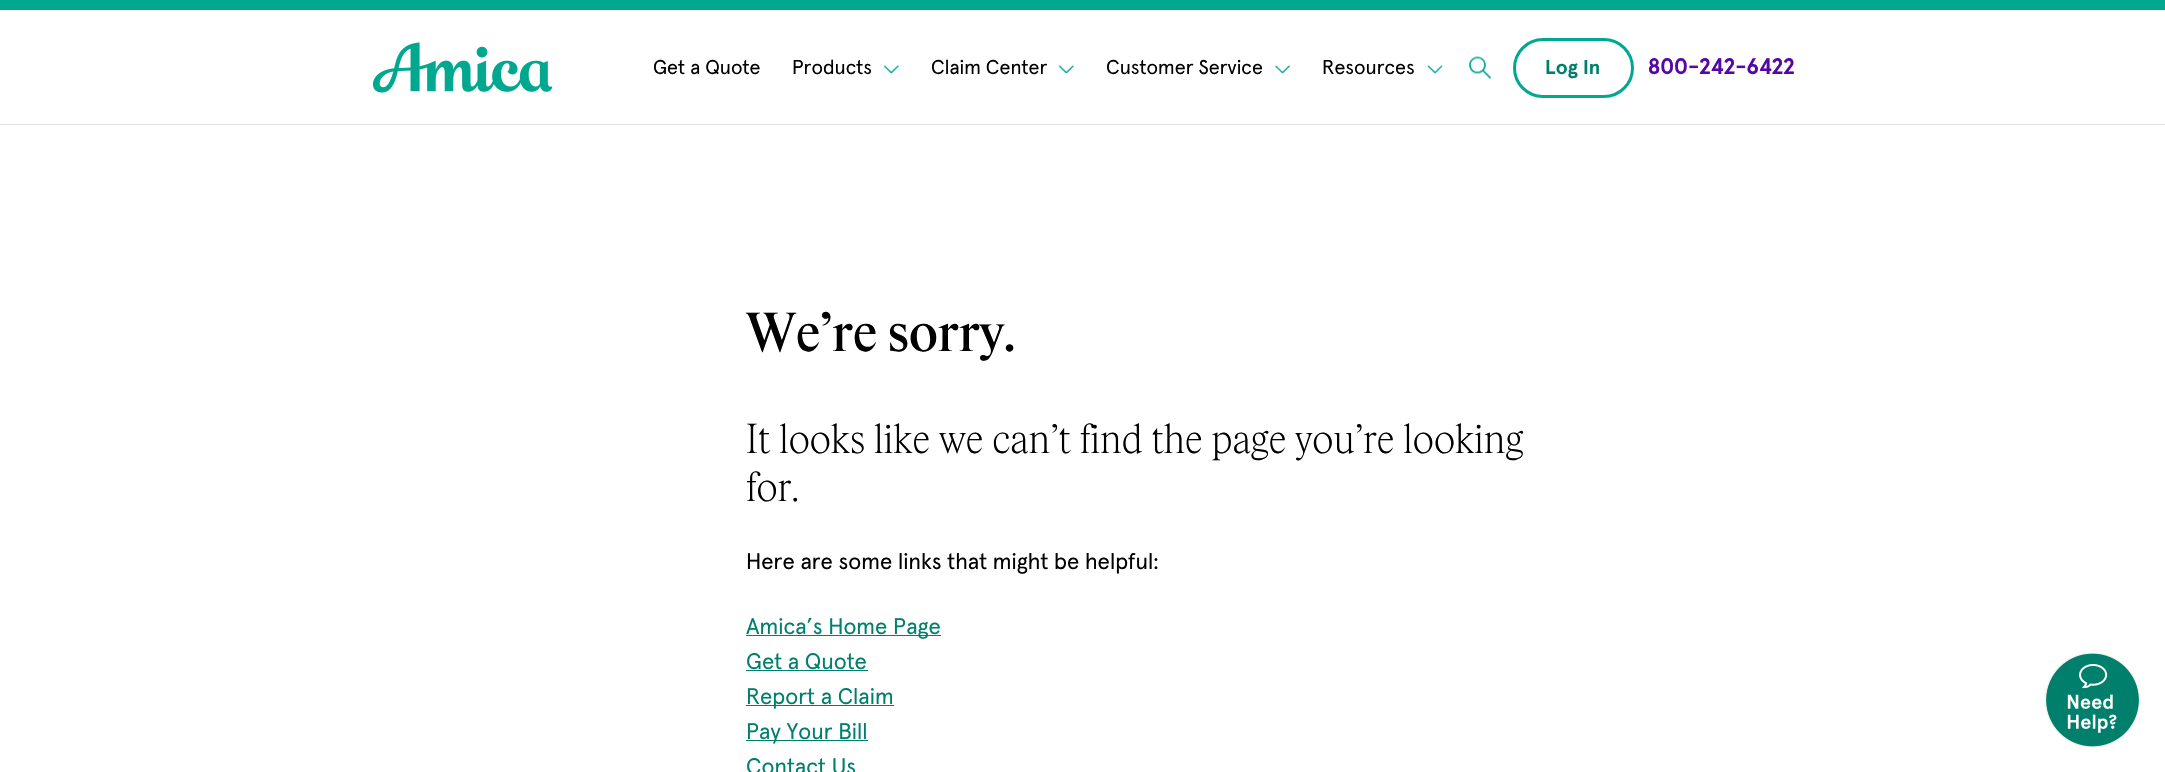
static SkFont makeFont(const char* family, int weight, float size, bool italic = false) {
  SkFontStyle style(weight, SkFontStyle::kNormal_Width,
    italic ? SkFontStyle::kItalic_Slant : SkFontStyle::kUpright_Slant);
  SkFont result(fontMgr->matchFamilyStyle(family, style), size);
  result.setSubpixel(true);
  return result;
}

static void text(SkCanvas* c, const char* s, float x, float y, const SkFont& font, SkColor color) {
  SkPaint ink(SkColor4f::FromColor(color));
  ink.setAntiAlias(true);
  c->drawString(s, x, y, font, ink);
}

static void box(SkCanvas* c, float l, float t, float r, float b, SkColor color) {
  SkPaint ink(SkColor4f::FromColor(color));
  ink.setAntiAlias(true);
  c->drawRect(SkRect::MakeLTRB(l, t, r, b), ink);
}

static void picture(SkCanvas* c, const char* path, float l, float t, float r, float b) {
  auto image = SkImages::DeferredFromEncodedData(SkData::MakeFromFileName(path));
  c->drawImageRect(image, SkRect::MakeLTRB(l, t, r, b), SkSamplingOptions());
}

void draw(SkCanvas* c) {
  SkPaint paint;
  paint.setAntiAlias(true);
  c->clear(0xffffffff);
  box(c, 0, 124, 2165, 125, 0xffe2e2e2);
  box(c, 0, 0, 2165, 10, 0xff00a88f);
  picture(c, "img_01.png", 372, 42, 553, 93);
  SkFont face1 = makeFont("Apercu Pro", 400, 20);
  text(c, "Get a Quote", 653, 74, face1, 0xff000000);
  text(c, "Products", 792, 74, face1, 0xff000000);
  picture(c, "img_02.png", 884, 65, 899, 74);
  text(c, "Claim Center", 931, 74, face1, 0xff000000);
  picture(c, "img_03.png", 1058, 65, 1074, 74);
  text(c, "Customer Service", 1106, 74, face1, 0xff000000);
  picture(c, "img_04.png", 1274, 65, 1290, 74);
  text(c, "Resources", 1322, 74, face1, 0xff000000);
  picture(c, "img_05.png", 1427, 65, 1443, 74);
  picture(c, "img_06.png", 1469, 56, 1491, 79);
  paint.setStyle(SkPaint::kStroke_Style);
  paint.setStrokeWidth(3);
  paint.setColor(0xff00a88f);
  c->drawRoundRect(SkRect::MakeLTRB(1514.5f, 39.5f, 1632.5f, 96.5f), 28.5f, 28.5f, paint);
  SkFont face2 = makeFont("Apercu Pro", 700, 20);
  text(c, "Log In", 1545, 74, face2, 0xff00806c);
  SkFont face3 = makeFont("Apercu Pro", 700, 22.5f);
  text(c, "800-242-6422", 1648, 74, face3, 0xff5508a5);
  SkFont face4 = makeFont("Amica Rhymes", 500, 52.5f);
  text(c, "We’re sorry.", 746, 351, face4, 0xff000000);
  SkFont face5 = makeFont("Amica Rhymes", 100, 40);
  text(c, "It looks like we can’t find the page you’re looking", 746, 453, face5, 0xff000000);
  text(c, "for.", 746, 501, face5, 0xff000000);
  SkFont face6 = makeFont("Apercu Pro", 400, 22.5f);
  text(c, "Here are some links that might be helpful:", 746, 569, face6, 0xff000000);
  box(c, 746, 635, 941, 636, 0xff00806c);
  text(c, "Amica’s Home Page", 746, 634, face6, 0xff00806c);
  text(c, "Get a Quote", 746, 669, face6, 0xff00806c);
  box(c, 746, 670, 868, 671, 0xff00806c);
  box(c, 746, 705, 894, 706, 0xff00806c);
  text(c, "Report a Claim", 746, 704, face6, 0xff00806c);
  box(c, 746, 740, 868, 741, 0xff00806c);
  text(c, "Pay Your Bill", 746, 739, face6, 0xff00806c);
  text(c, "Contact Us", 746, 774, face6, 0xff00806c);
  picture(c, "img_07.png", 2045, 653, 2140, 748);
}
